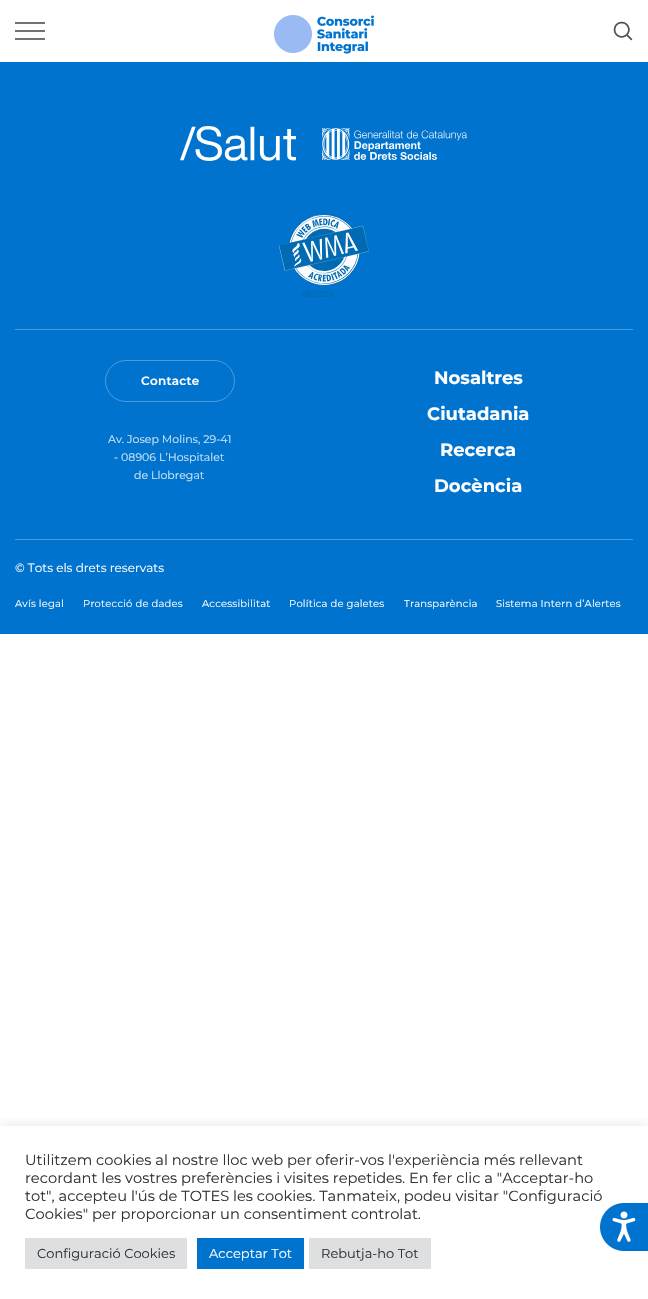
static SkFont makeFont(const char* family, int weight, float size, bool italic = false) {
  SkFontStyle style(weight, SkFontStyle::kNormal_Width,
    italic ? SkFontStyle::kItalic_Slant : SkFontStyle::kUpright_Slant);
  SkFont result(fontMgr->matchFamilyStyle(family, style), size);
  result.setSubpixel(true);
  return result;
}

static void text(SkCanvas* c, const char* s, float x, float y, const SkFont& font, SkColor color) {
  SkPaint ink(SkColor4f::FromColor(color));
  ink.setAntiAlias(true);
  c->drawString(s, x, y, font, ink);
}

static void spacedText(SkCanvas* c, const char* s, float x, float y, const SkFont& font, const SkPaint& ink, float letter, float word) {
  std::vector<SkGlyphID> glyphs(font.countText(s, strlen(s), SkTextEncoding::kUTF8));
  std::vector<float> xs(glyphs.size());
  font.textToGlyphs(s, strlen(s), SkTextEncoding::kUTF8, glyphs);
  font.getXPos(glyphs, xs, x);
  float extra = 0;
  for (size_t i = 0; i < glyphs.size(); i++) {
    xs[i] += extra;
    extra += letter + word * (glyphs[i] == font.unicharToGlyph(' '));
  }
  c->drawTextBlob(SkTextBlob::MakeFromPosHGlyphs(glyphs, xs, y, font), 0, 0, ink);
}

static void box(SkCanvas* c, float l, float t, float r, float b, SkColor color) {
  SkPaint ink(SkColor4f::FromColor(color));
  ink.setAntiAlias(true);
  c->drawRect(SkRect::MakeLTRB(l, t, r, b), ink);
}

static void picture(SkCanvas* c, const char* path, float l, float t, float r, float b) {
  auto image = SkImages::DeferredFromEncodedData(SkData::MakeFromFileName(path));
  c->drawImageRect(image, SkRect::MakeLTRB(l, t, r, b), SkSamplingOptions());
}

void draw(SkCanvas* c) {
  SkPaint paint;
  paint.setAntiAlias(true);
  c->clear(0xffffffff);
  box(c, 15, 22, 45, 24, 0xff737373);
  box(c, 15, 30, 45, 32, 0xff737373);
  box(c, 15, 38, 45, 40, 0xff737373);
  picture(c, "img_01.png", 274, 15, 374, 54);
  picture(c, "img_02.png", 613, 21, 633, 41);
  box(c, 0, 62, 648, 634, 0xff0073ce);
  box(c, 15, 329, 633, 330, 0xff4c9bdd);
  picture(c, "img_03.png", 180, 126, 467, 161);
  picture(c, "img_04.png", 279, 214, 369, 297);
  paint.setStyle(SkPaint::kStroke_Style);
  paint.setStrokeWidth(1);
  paint.setColor(0xff4c9bdd);
  c->drawRoundRect(SkRect::MakeLTRB(105.5f, 360.5f, 234.5f, 401.5f), 20.5f, 20.5f, paint);
  SkFont face1 = makeFont("Montserrat", 600, 12);
  paint.setStyle(SkPaint::kFill_Style);
  paint.setColor(0xffffffff);
  spacedText(c, "Contacte", 141, 385, face1, paint, 0.25f, 0);
  SkFont face2 = makeFont("Montserrat", 400, 11);
  text(c, "Av. Josep Molins, 29-41", 108, 443, face2, 0xffcce3f5);
  text(c, "- 08906 L’Hospitalet", 114, 461, face2, 0xffcce3f5);
  text(c, "de Llobregat", 134, 479, face2, 0xffcce3f5);
  SkFont face3 = makeFont("Montserrat", 700, 18);
  text(c, "Nosaltres", 434, 384, face3, 0xffffffff);
  text(c, "Ciutadania", 427, 420, face3, 0xffffffff);
  text(c, "Recerca", 440, 456, face3, 0xffffffff);
  text(c, "Docència", 434, 492, face3, 0xffffffff);
  box(c, 15, 539, 633, 540, 0xff4c9bdd);
  SkFont face4 = makeFont("Montserrat", 400, 12);
  text(c, "© Tots els drets reservats", 15, 572, face4, 0xffffffff);
  SkFont face5 = makeFont("Montserrat", 400, 10);
  spacedText(c, "Avís legal", 15, 607, face5, paint, 0.2f, 0);
  spacedText(c, "Protecció de dades", 83, 607, face5, paint, 0.2f, 0);
  spacedText(c, "Accessibilitat", 202, 607, face5, paint, 0.2f, 0);
  spacedText(c, "Política de galetes", 289, 607, face5, paint, 0.2f, 0);
  spacedText(c, "Transparència", 404, 607, face5, paint, 0.2f, 0);
  spacedText(c, "Sistema Intern d’Alertes", 496, 607, face5, paint, 0.2f, 0);
  c->save();
  c->clipRect(SkRect::MakeLTRB(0, 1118, 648, 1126));
  paint.setColor(0x4dacabab);
  paint.setMaskFilter(SkMaskFilter::MakeBlur(kNormal_SkBlurStyle, 5));
  c->drawRect(SkRect::MakeLTRB(0, 1125, 648, 1298), paint);
  paint.setMaskFilter(nullptr);
  c->restore();
  SkFont face6 = makeFont("Montserrat", 400, 14.65f);
  text(c, "Utilitzem cookies al nostre lloc web per oferir-vos l'experiència més rellevant", 25, 1165, face6, 0xff333333);
  text(c, "recordant les vostres preferències i visites repetides. En fer clic a \"Acceptar-ho", 25, 1183, face6, 0xff333333);
  text(c, "tot\", accepteu l'ús de TOTES les cookies. Tanmateix, podeu visitar \"Configuració", 25, 1201, face6, 0xff333333);
  text(c, "Cookies\" per proporcionar un consentiment controlat.", 25, 1219, face6, 0xff333333);
  box(c, 25, 1238, 187, 1269, 0xffdedfe0);
  SkFont face7 = makeFont("Montserrat", 400, 13);
  text(c, "Configuració Cookies", 37, 1258, face7, 0xff333333);
  box(c, 197, 1238, 304, 1269, 0xff0073cf);
  text(c, "Acceptar Tot", 209, 1258, face7, 0xffffffff);
  box(c, 309, 1238, 431, 1269, 0xffdedfe0);
  text(c, "Rebutja-ho Tot", 321, 1258, face7, 0xff333333);
  picture(c, "img_05.png", 600, 1203, 648, 1251);
}
